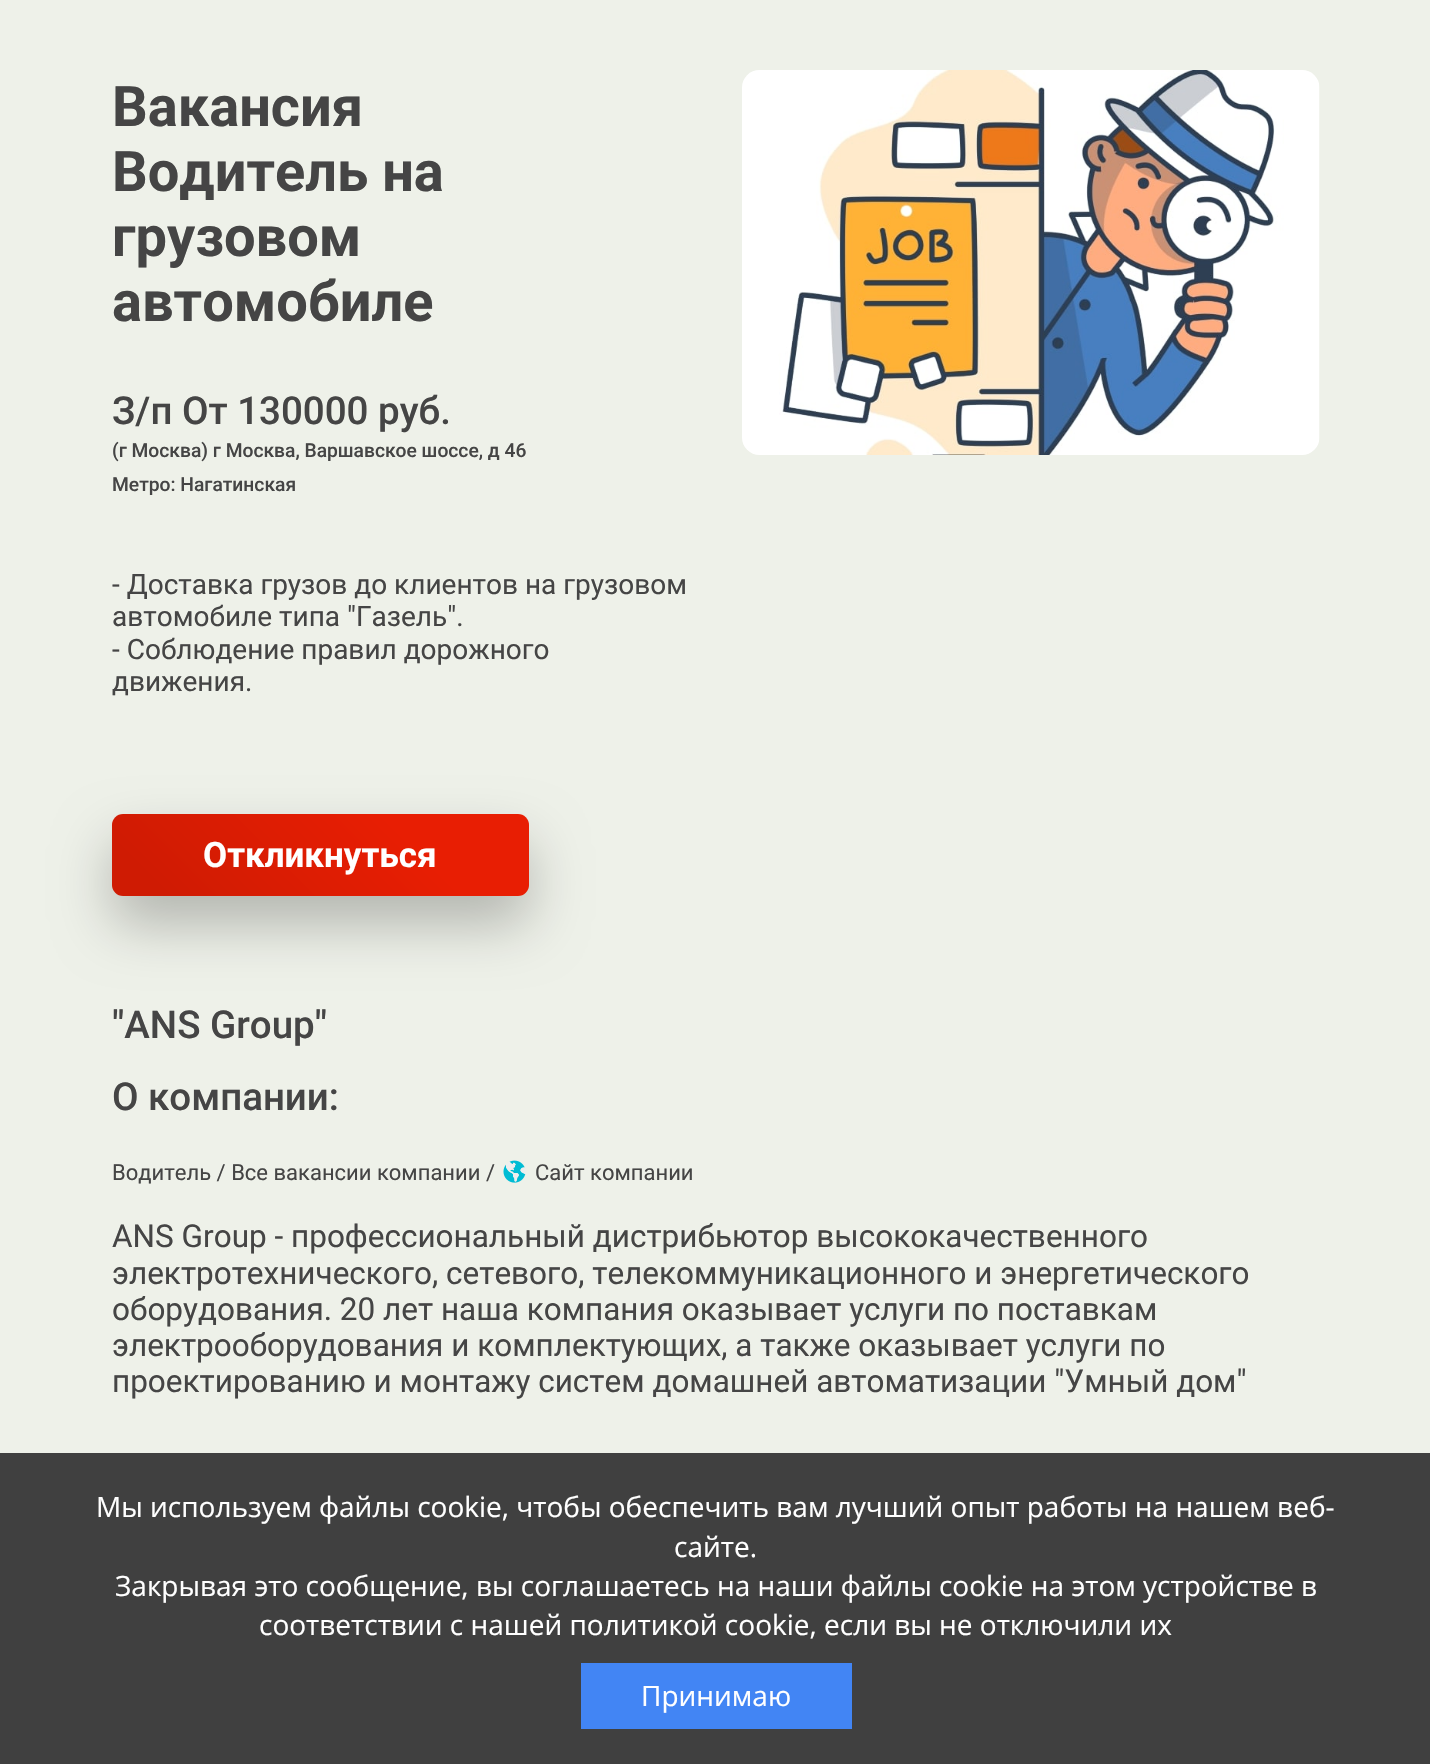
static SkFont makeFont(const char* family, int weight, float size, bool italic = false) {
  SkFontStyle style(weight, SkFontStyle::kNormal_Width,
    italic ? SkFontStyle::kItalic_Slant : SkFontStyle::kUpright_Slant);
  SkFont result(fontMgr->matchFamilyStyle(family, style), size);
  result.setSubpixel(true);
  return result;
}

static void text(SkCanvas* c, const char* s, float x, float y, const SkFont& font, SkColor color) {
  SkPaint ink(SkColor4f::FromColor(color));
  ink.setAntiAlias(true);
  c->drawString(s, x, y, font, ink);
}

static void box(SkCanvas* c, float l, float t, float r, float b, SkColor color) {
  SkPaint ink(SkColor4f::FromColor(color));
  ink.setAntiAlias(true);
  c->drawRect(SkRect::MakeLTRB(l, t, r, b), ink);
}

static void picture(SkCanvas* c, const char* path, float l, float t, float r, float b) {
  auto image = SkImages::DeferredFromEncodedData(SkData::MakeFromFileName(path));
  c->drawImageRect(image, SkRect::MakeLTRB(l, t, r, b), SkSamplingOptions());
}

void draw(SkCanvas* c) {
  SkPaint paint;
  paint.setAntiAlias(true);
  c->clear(0xffeef1e9);
  SkFont face1 = makeFont("Roboto", 700, 56);
  text(c, "Вакансия", 112, 126, face1, 0xff454545);
  text(c, "Водитель на", 112, 191, face1, 0xff454545);
  text(c, "грузовом", 112, 256, face1, 0xff454545);
  text(c, "автомобиле", 112, 321, face1, 0xff454545);
  SkFont face2 = makeFont("Roboto", 500, 38.5f);
  text(c, "З/п От 130000 руб.", 112, 424, face2, 0xff454545);
  SkFont face3 = makeFont("Roboto", 500, 19.25f);
  text(c, "(г Москва) г Москва, Варшавское шоссе, д 46", 112, 457, face3, 0xff454545);
  text(c, "Метро: Нагатинская", 112, 491, face3, 0xff454545);
  SkFont face4 = makeFont("Roboto", 400, 28);
  text(c, "- Доставка грузов до клиентов на грузовом", 112, 594, face4, 0xff454545);
  text(c, "автомобиле типа \"Газель\".", 112, 626, face4, 0xff454545);
  text(c, "- Соблюдение правил дорожного", 112, 659, face4, 0xff454545);
  text(c, "движения.", 112, 691, face4, 0xff454545);
  paint.setColor(0x40000000);
  paint.setMaskFilter(SkMaskFilter::MakeBlur(kNormal_SkBlurStyle, 28));
  c->drawRoundRect(SkRect::MakeLTRB(112, 842, 529, 924), 11, 11, paint);
  paint.setMaskFilter(nullptr);
  {
    const SkColor colors[] = {0xffcf1b03, 0xffe81e03};
    const float stops[] = {0.55f, 0.85f};
    const SkPoint ends[] = {{-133, 1145}, {366, 647}};
    paint.setShader(SkGradientShader::MakeLinear(ends, colors, stops, 2, SkTileMode::kClamp));
    paint.setAlpha(255);
  }
  c->drawRoundRect(SkRect::MakeLTRB(112, 814, 529, 896), 11, 11, paint);
  SkFont face5 = makeFont("Roboto", 700, 35);
  text(c, "Откликнуться", 203, 867, face5, 0xffffffff);
  picture(c, "img_01.png", 742, 70, 1320, 455);
  text(c, "\"ANS Group\"", 112, 1038, face2, 0xff454545);
  text(c, "О компании:", 112, 1110, face2, 0xff454545);
  SkFont face6 = makeFont("Roboto", 400, 22);
  text(c, "Водитель / Все вакансии компании /", 112, 1180, face6, 0xff454545);
  picture(c, "img_02.png", 503, 1160, 526, 1183);
  text(c, "Сайт компании", 535, 1180, face6, 0xff454545);
  SkFont face7 = makeFont("Roboto", 400, 31.5f);
  text(c, "ANS Group - профессиональный дистрибьютор высококачественного", 112, 1247, face7, 0xff454545);
  text(c, "электротехнического, сетевого, телекоммуникационного и энергетического", 112, 1284, face7, 0xff454545);
  text(c, "оборудования. 20 лет наша компания оказывает услуги по поставкам", 112, 1320, face7, 0xff454545);
  text(c, "электрооборудования и комплектующих, а также оказывает услуги по", 112, 1356, face7, 0xff454545);
  text(c, "проектированию и монтажу систем домашней автоматизации \"Умный дом\"", 112, 1392, face7, 0xff454545);
  box(c, 0, 1453, 1430, 1764, 0xff404040);
  SkFont face8 = makeFont("Open Sans", 400, 28);
  text(c, "Мы используем файлы cookie, чтобы обеспечить вам лучший опыт работы на нашем веб-", 96, 1517, face8, 0xffffffff);
  text(c, "сайте.", 674, 1557, face8, 0xffffffff);
  text(c, "Закрывая это сообщение, вы соглашаетесь на наши файлы cookie на этом устройстве в", 115, 1596, face8, 0xffffffff);
  text(c, "соответствии с нашей политикой cookie, если вы не отключили их", 259, 1635, face8, 0xffffffff);
  box(c, 581, 1663, 852, 1729, 0xff4285f4);
  text(c, "Принимаю", 641, 1706, face8, 0xffffffff);
}
